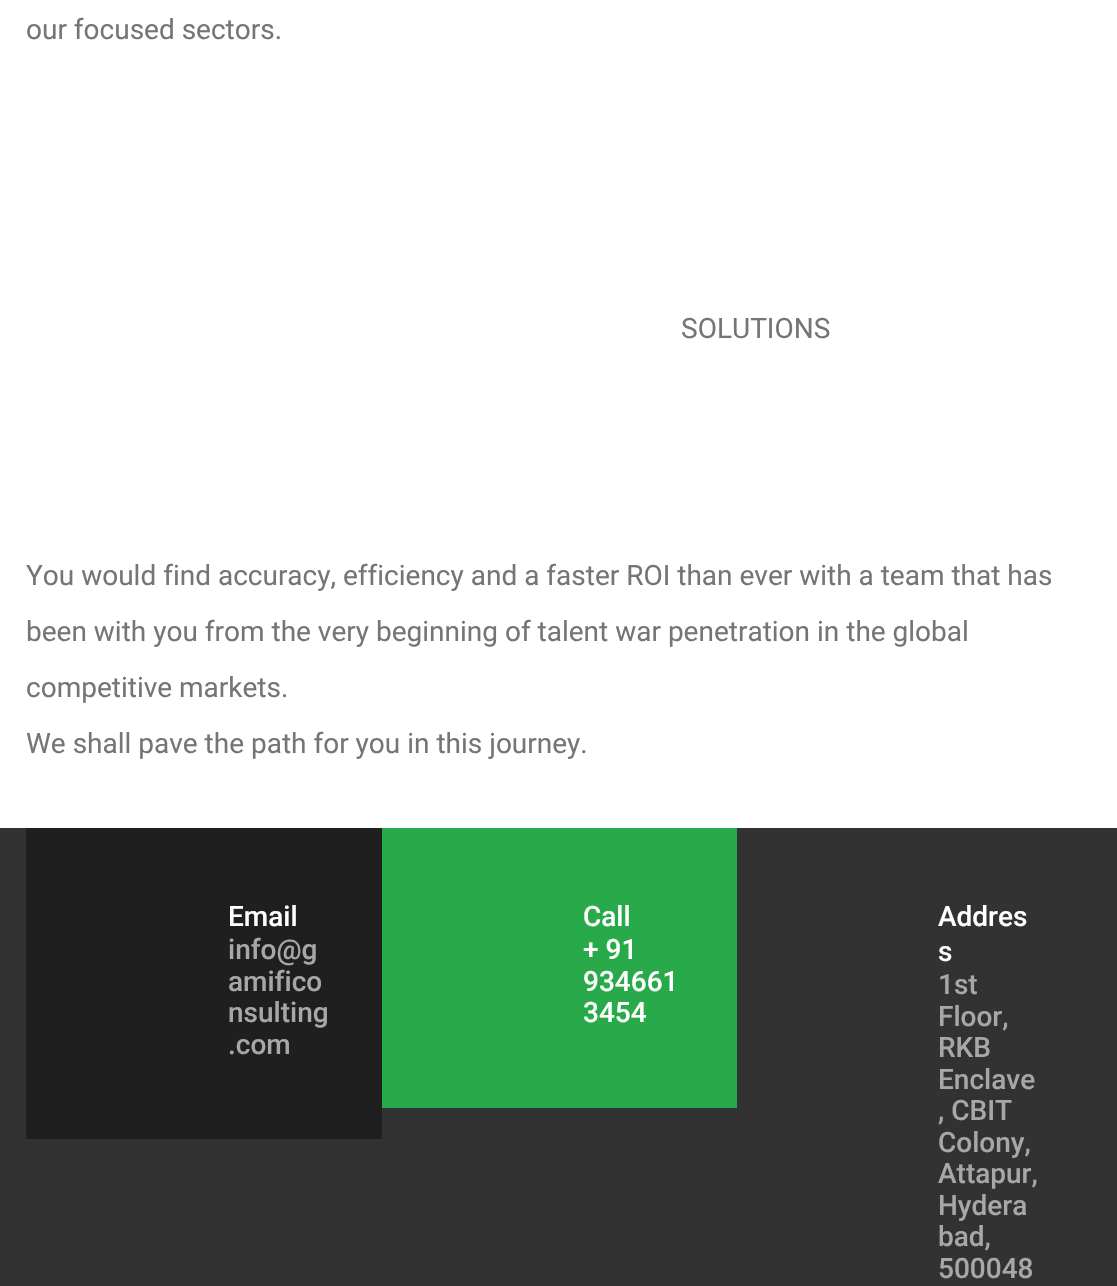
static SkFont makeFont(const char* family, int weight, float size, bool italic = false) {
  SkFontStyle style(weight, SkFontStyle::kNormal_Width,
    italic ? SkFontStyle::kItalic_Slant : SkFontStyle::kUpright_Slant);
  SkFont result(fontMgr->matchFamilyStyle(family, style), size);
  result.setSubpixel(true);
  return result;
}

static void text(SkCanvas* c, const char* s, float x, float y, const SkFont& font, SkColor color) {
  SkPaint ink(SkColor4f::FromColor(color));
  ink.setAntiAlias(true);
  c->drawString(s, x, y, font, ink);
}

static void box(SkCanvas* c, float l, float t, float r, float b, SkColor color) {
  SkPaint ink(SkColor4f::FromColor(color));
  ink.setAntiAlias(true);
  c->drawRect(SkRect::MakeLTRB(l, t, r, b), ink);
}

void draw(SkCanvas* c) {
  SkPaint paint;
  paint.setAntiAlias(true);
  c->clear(0xffffffff);
  SkFont face1 = makeFont("Roboto", 400, 28);
  text(c, "our focused sectors.", 26, 39, face1, 0xff757575);
  text(c, "SOLUTIONS", 681, 338, face1, 0xff757575);
  text(c, "You would find accuracy, efficiency and a faster ROI than ever with a team that has", 26, 585, face1, 0xff757575);
  text(c, "been with you from the very beginning of talent war penetration in the global", 26, 641, face1, 0xff757575);
  text(c, "competitive markets.", 26, 697, face1, 0xff757575);
  text(c, "We shall pave the path for you in this journey.", 26, 753, face1, 0xff757575);
  box(c, 0, 828, 1117, 1286, 0xff323232);
  box(c, 26, 828, 382, 1139, 0xff1f1f1f);
  SkFont face2 = makeFont("Roboto", 500, 28);
  text(c, "Email", 228, 926, face2, 0xffffffff);
  text(c, "info@g", 228, 959, face2, 0xffa7a7a7);
  text(c, "amifico", 228, 991, face2, 0xffa7a7a7);
  text(c, "nsulting", 228, 1022, face2, 0xffa7a7a7);
  text(c, ".com", 228, 1054, face2, 0xffa7a7a7);
  box(c, 382, 828, 737, 1108, 0xff28aa4a);
  text(c, "Call", 583, 926, face2, 0xffffffff);
  text(c, "+ 91", 583, 959, face2, 0xffffffff);
  text(c, "934661", 583, 991, face2, 0xffffffff);
  text(c, "3454", 583, 1022, face2, 0xffffffff);
  text(c, "Addres", 938, 926, face2, 0xffffffff);
  text(c, "s", 938, 961, face2, 0xffffffff);
  text(c, "1st", 938, 994, face2, 0xffa7a7a7);
  text(c, "Floor,", 938, 1026, face2, 0xffa7a7a7);
  text(c, "RKB", 938, 1057, face2, 0xffa7a7a7);
  text(c, "Enclave", 938, 1089, face2, 0xffa7a7a7);
  text(c, ", CBIT", 938, 1120, face2, 0xffa7a7a7);
  text(c, "Colony,", 938, 1152, face2, 0xffa7a7a7);
  text(c, "Attapur,", 938, 1183, face2, 0xffa7a7a7);
  text(c, "Hydera", 938, 1215, face2, 0xffa7a7a7);
  text(c, "bad,", 938, 1246, face2, 0xffa7a7a7);
  text(c, "500048", 938, 1278, face2, 0xffa7a7a7);
}
